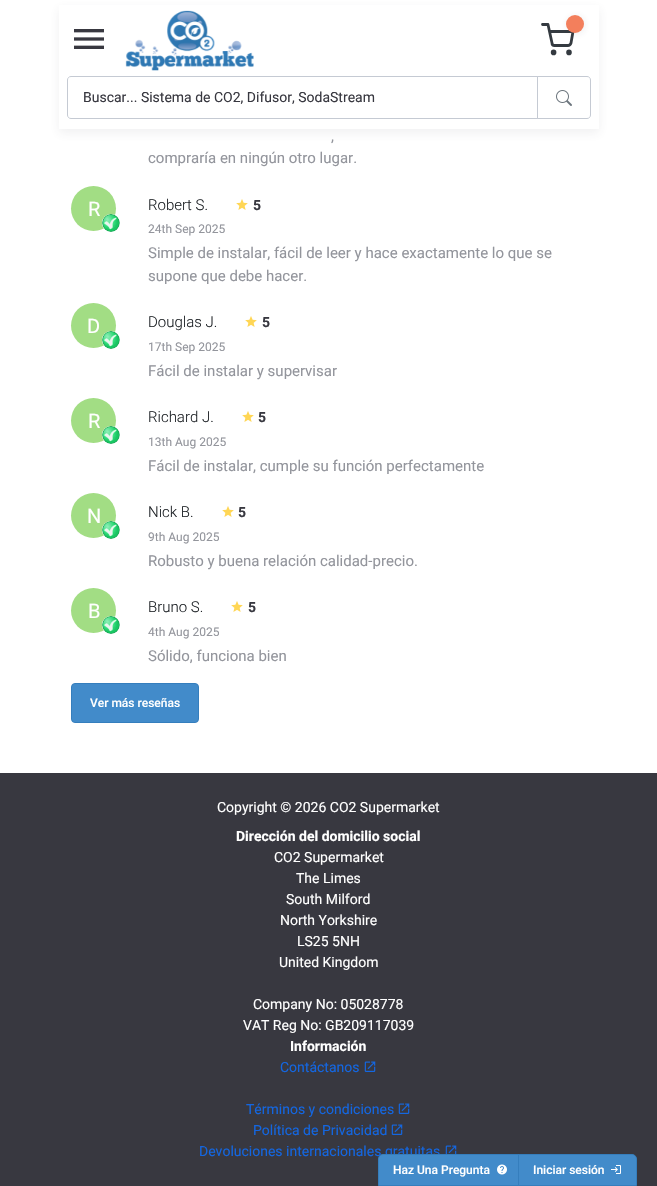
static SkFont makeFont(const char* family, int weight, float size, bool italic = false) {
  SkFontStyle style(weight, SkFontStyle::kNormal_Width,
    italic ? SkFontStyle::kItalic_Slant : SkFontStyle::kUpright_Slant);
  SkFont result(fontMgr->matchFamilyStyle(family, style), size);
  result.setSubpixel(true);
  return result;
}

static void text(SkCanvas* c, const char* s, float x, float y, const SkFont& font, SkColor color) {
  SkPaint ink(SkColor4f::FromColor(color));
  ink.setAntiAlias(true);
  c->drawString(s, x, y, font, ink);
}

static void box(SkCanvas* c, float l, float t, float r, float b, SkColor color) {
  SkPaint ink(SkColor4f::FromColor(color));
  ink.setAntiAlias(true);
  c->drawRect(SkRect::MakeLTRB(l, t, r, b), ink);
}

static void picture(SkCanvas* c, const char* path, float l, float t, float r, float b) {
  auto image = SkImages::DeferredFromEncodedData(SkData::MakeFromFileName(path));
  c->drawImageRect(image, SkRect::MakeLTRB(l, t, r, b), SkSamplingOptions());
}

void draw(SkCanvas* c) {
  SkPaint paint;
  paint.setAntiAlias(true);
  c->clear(0xffffffff);
  c->save();
  c->clipPath(SkPathBuilder(SkPathFillType::kEvenOdd).moveTo(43, 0).lineTo(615, 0).lineTo(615, 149).lineTo(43, 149).close().moveTo(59, 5).lineTo(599, 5).lineTo(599, 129).lineTo(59, 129).close().detach(), true);
  paint.setColor(0x14453d50);
  paint.setMaskFilter(SkMaskFilter::MakeBlur(kNormal_SkBlurStyle, 5));
  c->drawRect(SkRect::MakeLTRB(59, 9, 599, 133), paint);
  paint.setMaskFilter(nullptr);
  c->restore();
  picture(c, "img_01.png", 74, 29, 104, 49);
  picture(c, "img_02.png", 125, 10, 254, 71);
  paint.setStyle(SkPaint::kStroke_Style);
  paint.setStrokeWidth(2.8f);
  paint.setStrokeCap(SkPaint::kRound_Cap);
  paint.setStrokeJoin(SkPaint::kRound_Join);
  paint.setColor(0xff343a40);
  c->drawPath(SkPathBuilder().moveTo(542.5f, 24.5f).lineTo(548, 24.5f).lineTo(552, 43).cubicTo(552, 44.5f, 553, 45.5f, 554.5f, 45.5f).lineTo(568, 45.5f).cubicTo(569.5f, 45.5f, 570.5f, 44.5f, 571, 43).lineTo(573, 31.5f).lineTo(549.5f, 31.5f).detach(), paint);
  paint.setStyle(SkPaint::kFill_Style);
  paint.setColor(0x17383840);
  paint.setMaskFilter(SkMaskFilter::MakeBlur(kNormal_SkBlurStyle, 3.5f));
  c->drawRoundRect(SkRect::MakeLTRB(567, 16, 585, 34), 9, 9, paint);
  paint.setMaskFilter(nullptr);
  paint.setColor(0xfff37f5c);
  c->drawCircle(575, 24, 9, paint);
  paint.setStyle(SkPaint::kStroke_Style);
  paint.setStrokeCap(SkPaint::kButt_Cap);
  paint.setStrokeJoin(SkPaint::kMiter_Join);
  paint.setColor(0xff343a40);
  c->drawCircle(553.6f, 52.4f, 1.4f, paint);
  c->drawCircle(569, 52.4f, 1.4f, paint);
  paint.setStrokeWidth(1);
  paint.setColor(0xffc5cad3);
  c->drawPath(SkPathBuilder().moveTo(71, 76.5f).lineTo(537.5f, 76.5f).lineTo(537.5f, 118.5f).lineTo(71, 118.5f).cubicTo(69, 118.5f, 67.5f, 117, 67.5f, 115).lineTo(67.5f, 80).cubicTo(67.5f, 78, 69, 76.5f, 71, 76.5f).close().detach(), paint);
  SkFont face1 = makeFont("Roboto", 400, 14);
  text(c, "Buscar... Sistema de CO2, Difusor, SodaStream", 83, 102, face1, 0xff383840);
  c->drawPath(SkPathBuilder().moveTo(537.5f, 76.5f).lineTo(587, 76.5f).cubicTo(589, 76.5f, 590.5f, 78, 590.5f, 80).lineTo(590.5f, 115).cubicTo(590.5f, 117, 589, 118.5f, 587, 118.5f).lineTo(537.5f, 118.5f).close().detach(), paint);
  picture(c, "img_03.png", 556, 90, 572, 106);
  SkFont face2 = makeFont("Roboto", 400, 15);
  text(c, ",", 331, 141, face2, 0xff93959c);
  text(c, "compraría en ningún otro lugar.", 148, 163, face2, 0xff93959c);
  paint.setStyle(SkPaint::kFill_Style);
  paint.setColor(0xffa2dd84);
  c->drawCircle(93.5f, 208.5f, 22.5f, paint);
  SkFont face3 = makeFont("Roboto", 400, 20);
  text(c, "R", 88, 216, face3, 0xffffffff);
  paint.setColor(0xffffffff);
  c->drawCircle(111, 223, 9, paint);
  picture(c, "img_04.png", 102, 214, 120, 232);
  SkFont face4 = makeFont("Roboto", 300, 15);
  text(c, "Robert S.", 148, 210, face4, 0xff212529);
  picture(c, "img_05.png", 236, 199, 248, 210);
  SkFont face5 = makeFont("Roboto", 700, 14);
  text(c, "5", 253, 210, face5, 0xff383840);
  SkFont face6 = makeFont("Roboto", 400, 12);
  text(c, "24th Sep 2025", 148, 233, face6, 0xff93959c);
  text(c, "Simple de instalar, fácil de leer y hace exactamente lo que se", 148, 258, face2, 0xff93959c);
  text(c, "supone que debe hacer.", 148, 281, face2, 0xff93959c);
  paint.setColor(0xffa2dd84);
  c->drawCircle(93.5f, 325.5f, 22.5f, paint);
  text(c, "D", 87, 333, face3, 0xffffffff);
  paint.setColor(0xffffffff);
  c->drawCircle(111, 340, 9, paint);
  picture(c, "img_04.png", 102, 331, 120, 349);
  text(c, "Douglas J.", 148, 327, face4, 0xff212529);
  picture(c, "img_05.png", 245, 316, 257, 327);
  text(c, "5", 262, 327, face5, 0xff383840);
  text(c, "17th Sep 2025", 148, 351, face6, 0xff93959c);
  text(c, "Fácil de instalar y supervisar", 148, 376, face2, 0xff93959c);
  paint.setColor(0xffa2dd84);
  c->drawCircle(93.5f, 420.5f, 22.5f, paint);
  text(c, "R", 88, 428, face3, 0xffffffff);
  paint.setColor(0xffffffff);
  c->drawCircle(111, 435, 9, paint);
  picture(c, "img_04.png", 102, 426, 120, 444);
  text(c, "Richard J.", 148, 422, face4, 0xff212529);
  picture(c, "img_05.png", 242, 411, 254, 422);
  text(c, "5", 258, 422, face5, 0xff383840);
  text(c, "13th Aug 2025", 148, 446, face6, 0xff93959c);
  text(c, "Fácil de instalar, cumple su función perfectamente", 148, 471, face2, 0xff93959c);
  paint.setColor(0xffa2dd84);
  c->drawCircle(93.5f, 515.5f, 22.5f, paint);
  text(c, "N", 87, 523, face3, 0xffffffff);
  paint.setColor(0xffffffff);
  c->drawCircle(111, 530, 9, paint);
  picture(c, "img_04.png", 102, 521, 120, 539);
  text(c, "Nick B.", 148, 517, face4, 0xff212529);
  picture(c, "img_05.png", 222, 506, 234, 517);
  text(c, "5", 238, 517, face5, 0xff383840);
  text(c, "9th Aug 2025", 148, 541, face6, 0xff93959c);
  text(c, "Robusto y buena relación calidad-precio.", 148, 566, face2, 0xff93959c);
  paint.setColor(0xffa2dd84);
  c->drawCircle(93.5f, 610.5f, 22.5f, paint);
  text(c, "B", 88, 618, face3, 0xffffffff);
  paint.setColor(0xffffffff);
  c->drawCircle(111, 625, 9, paint);
  picture(c, "img_04.png", 102, 616, 120, 634);
  text(c, "Bruno S.", 148, 612, face4, 0xff212529);
  picture(c, "img_05.png", 231, 601, 243, 612);
  text(c, "5", 248, 612, face5, 0xff383840);
  text(c, "4th Aug 2025", 148, 636, face6, 0xff93959c);
  text(c, "Sólido, funciona bien", 148, 661, face2, 0xff93959c);
  paint.setColor(0xff428bca);
  c->drawRoundRect(SkRect::MakeLTRB(71.5f, 683.5f, 198.5f, 722.5f), 3.5f, 3.5f, paint);
  paint.setStyle(SkPaint::kStroke_Style);
  paint.setColor(0xff357ebd);
  c->drawRoundRect(SkRect::MakeLTRB(71.5f, 683.5f, 198.5f, 722.5f), 3.5f, 3.5f, paint);
  SkFont face7 = makeFont("Roboto", 500, 12);
  text(c, "Ver más reseñas", 90, 707, face7, 0xffffffff);
  box(c, 0, 773, 657, 1186, 0xff383840);
  text(c, "Copyright © 2026 CO2 Supermarket", 217, 812, face1, 0xffffffff);
  text(c, "Dirección del domicilio social", 236, 841, face5, 0xffffffff);
  text(c, "CO2 Supermarket", 274, 862, face1, 0xffffffff);
  text(c, "The Limes", 296, 883, face1, 0xffffffff);
  text(c, "South Milford", 286, 904, face1, 0xffffffff);
  text(c, "North Yorkshire", 280, 925, face1, 0xffffffff);
  text(c, "LS25 5NH", 297, 946, face1, 0xffffffff);
  text(c, "United Kingdom", 279, 967, face1, 0xffffffff);
  text(c, "Company No: 05028778", 253, 1009, face1, 0xffffffff);
  text(c, "VAT Reg No: GB209117039", 243, 1030, face1, 0xffffffff);
  text(c, "Información", 290, 1051, face5, 0xffffffff);
  text(c, "Contáctanos", 280, 1072, face1, 0xff1366e1);
  picture(c, "img_06.png", 364, 1061, 376, 1072);
  text(c, "Términos y condiciones", 246, 1114, face1, 0xff1366e1);
  picture(c, "img_06.png", 398, 1103, 410, 1114);
  text(c, "Política de Privacidad", 253, 1135, face1, 0xff1366e1);
  picture(c, "img_06.png", 391, 1124, 403, 1135);
  text(c, "Devoluciones internacionales gratuitas", 199, 1156, face1, 0xff1366e1);
  picture(c, "img_07.png", 445, 1145, 457, 1154);
  paint.setStyle(SkPaint::kFill_Style);
  paint.setColor(0xff428bca);
  c->drawPath(SkPathBuilder().moveTo(383, 1154.5f).lineTo(522.5f, 1154.5f).lineTo(522.5f, 1185.5f).lineTo(378.5f, 1185.5f).lineTo(378.5f, 1159).cubicTo(378.5f, 1156.5f, 380.5f, 1154.5f, 383, 1154.5f).close().detach(), paint);
  paint.setStyle(SkPaint::kStroke_Style);
  paint.setColor(0xff357ebd);
  c->drawPath(SkPathBuilder().moveTo(383, 1154.5f).lineTo(522.5f, 1154.5f).lineTo(522.5f, 1185.5f).lineTo(378.5f, 1185.5f).lineTo(378.5f, 1159).cubicTo(378.5f, 1156.5f, 380.5f, 1154.5f, 383, 1154.5f).close().detach(), paint);
  text(c, "Haz Una Pregunta", 393, 1174, face7, 0xffffffff);
  picture(c, "img_08.png", 497, 1164, 507, 1175);
  paint.setStyle(SkPaint::kFill_Style);
  paint.setColor(0xff428bca);
  c->drawPath(SkPathBuilder().moveTo(518.5f, 1154.5f).lineTo(632, 1154.5f).cubicTo(634.5f, 1154.5f, 636.5f, 1156.5f, 636.5f, 1159).lineTo(636.5f, 1185.5f).lineTo(518.5f, 1185.5f).close().detach(), paint);
  paint.setStyle(SkPaint::kStroke_Style);
  paint.setColor(0xff357ebd);
  c->drawPath(SkPathBuilder().moveTo(518.5f, 1154.5f).lineTo(632, 1154.5f).cubicTo(634.5f, 1154.5f, 636.5f, 1156.5f, 636.5f, 1159).lineTo(636.5f, 1185.5f).lineTo(518.5f, 1185.5f).close().detach(), paint);
  text(c, "Iniciar sesión", 533, 1174, face7, 0xffffffff);
  picture(c, "img_09.png", 611, 1165, 621, 1174);
}
